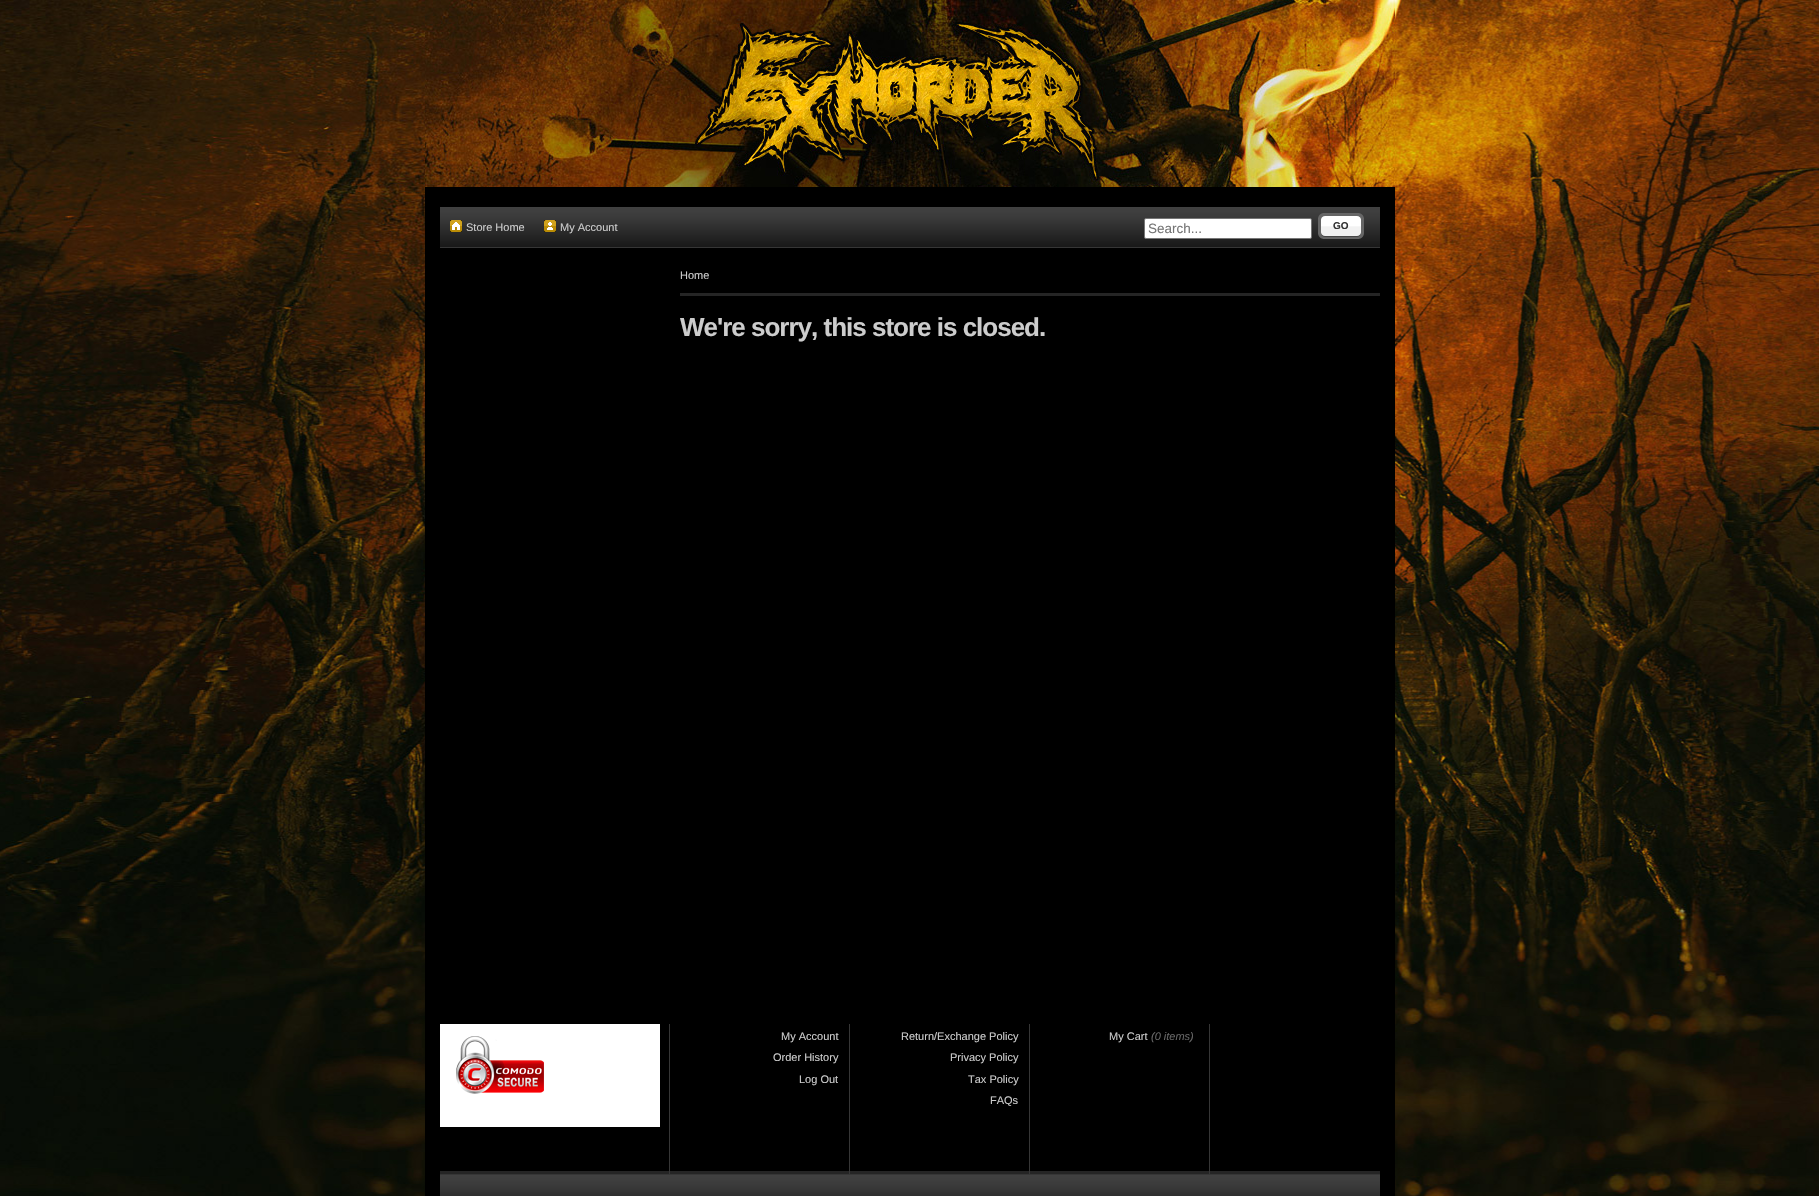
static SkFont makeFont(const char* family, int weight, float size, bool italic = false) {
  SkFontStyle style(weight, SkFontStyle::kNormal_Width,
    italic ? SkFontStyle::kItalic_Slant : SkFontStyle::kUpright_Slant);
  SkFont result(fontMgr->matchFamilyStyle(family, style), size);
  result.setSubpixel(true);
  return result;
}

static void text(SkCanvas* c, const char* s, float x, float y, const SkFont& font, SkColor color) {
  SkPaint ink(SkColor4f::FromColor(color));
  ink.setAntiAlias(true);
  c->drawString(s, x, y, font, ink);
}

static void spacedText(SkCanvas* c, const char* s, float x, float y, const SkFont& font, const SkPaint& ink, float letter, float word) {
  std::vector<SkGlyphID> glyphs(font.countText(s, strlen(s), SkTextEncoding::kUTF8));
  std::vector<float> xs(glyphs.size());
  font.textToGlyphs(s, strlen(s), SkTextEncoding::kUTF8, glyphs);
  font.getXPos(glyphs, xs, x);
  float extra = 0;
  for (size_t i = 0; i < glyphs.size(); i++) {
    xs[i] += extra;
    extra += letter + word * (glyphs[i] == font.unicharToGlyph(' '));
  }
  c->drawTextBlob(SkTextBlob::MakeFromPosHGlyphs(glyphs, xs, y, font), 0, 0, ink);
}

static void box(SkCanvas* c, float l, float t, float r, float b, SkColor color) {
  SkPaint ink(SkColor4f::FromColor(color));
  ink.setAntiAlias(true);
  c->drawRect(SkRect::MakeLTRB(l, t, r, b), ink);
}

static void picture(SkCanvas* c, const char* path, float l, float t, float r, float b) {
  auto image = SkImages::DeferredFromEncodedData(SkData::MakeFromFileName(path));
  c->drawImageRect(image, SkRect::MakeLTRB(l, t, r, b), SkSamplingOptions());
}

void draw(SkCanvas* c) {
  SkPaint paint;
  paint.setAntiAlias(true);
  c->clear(0xffffffff);
  picture(c, "img_01.png", 0, 0, 1819, 1196);
  box(c, 425, 187, 1395, 1196, 0xff000000);
  picture(c, "img_02.png", 425, 0, 1395, 187);
  picture(c, "img_03.png", 440, 207, 1380, 247);
  box(c, 440, 247, 1380, 248, 0xff363636);
  box(c, 450, 220, 462, 232, 0xffdba506);
  picture(c, "img_04.png", 450, 220, 462, 232);
  SkFont face1 = makeFont("Liberation Sans", 400, 11);
  text(c, "Store Home", 466, 231, face1, 0xffcccccc);
  box(c, 544, 220, 556, 232, 0xffdba506);
  picture(c, "img_05.png", 544, 220, 556, 232);
  text(c, "My Account", 560, 231, face1, 0xffcccccc);
  paint.setColor(0xffffffff);
  c->drawRoundRect(SkRect::MakeLTRB(1144.5f, 218.5f, 1311.5f, 238.5f), 1.5f, 1.5f, paint);
  paint.setStyle(SkPaint::kStroke_Style);
  paint.setStrokeWidth(1);
  paint.setColor(0xff767676);
  c->drawRoundRect(SkRect::MakeLTRB(1144.5f, 218.5f, 1311.5f, 238.5f), 1.5f, 1.5f, paint);
  SkFont face2 = makeFont("Liberation Sans", 400, 13.5f);
  text(c, "Search...", 1148, 233, face2, 0xff757575);
  picture(c, "img_06.png", 1318, 213, 1325, 239);
  picture(c, "img_07.png", 1325, 213, 1357, 239);
  SkFont face3 = makeFont("Liberation Sans", 700, 10);
  text(c, "GO", 1333, 229, face3, 0xff333333);
  picture(c, "img_08.png", 1357, 213, 1364, 239);
  box(c, 680, 293, 1380, 296, 0xff252525);
  text(c, "Home", 680, 279, face1, 0xffcccccc);
  SkFont face4 = makeFont("Liberation Sans", 700, 26);
  paint.setStyle(SkPaint::kFill_Style);
  paint.setColor(0xffcccccc);
  spacedText(c, "We're sorry, this store is closed.", 680, 336, face4, paint, -1, 0);
  box(c, 440, 1171, 1380, 1174, 0xff252525);
  box(c, 669, 1024, 670, 1174, 0xff363636);
  box(c, 440, 1024, 660, 1127, 0xffffffff);
  picture(c, "img_09.png", 456, 1036, 544, 1094);
  box(c, 849, 1024, 850, 1174, 0xff363636);
  text(c, "My Account", 781, 1040, face1, 0xffcccccc);
  text(c, "Order History", 773, 1061, face1, 0xffcccccc);
  text(c, "Log Out", 799, 1083, face1, 0xffcccccc);
  box(c, 1029, 1024, 1030, 1174, 0xff363636);
  text(c, "Return/Exchange Policy", 901, 1040, face1, 0xffcccccc);
  text(c, "Privacy Policy", 950, 1061, face1, 0xffcccccc);
  text(c, "Tax Policy", 968, 1083, face1, 0xffcccccc);
  text(c, "FAQs", 990, 1104, face1, 0xffcccccc);
  box(c, 1209, 1024, 1210, 1174, 0xff363636);
  text(c, "My Cart", 1109, 1040, face1, 0xffcccccc);
  SkFont face5 = makeFont("Liberation Sans", 400, 11, true);
  text(c, "(0 items)", 1151, 1040, face5, 0xff666666);
  picture(c, "img_10.png", 440, 1175, 1380, 1196);
  box(c, 440, 1174, 1380, 1175, 0xff363636);
}
